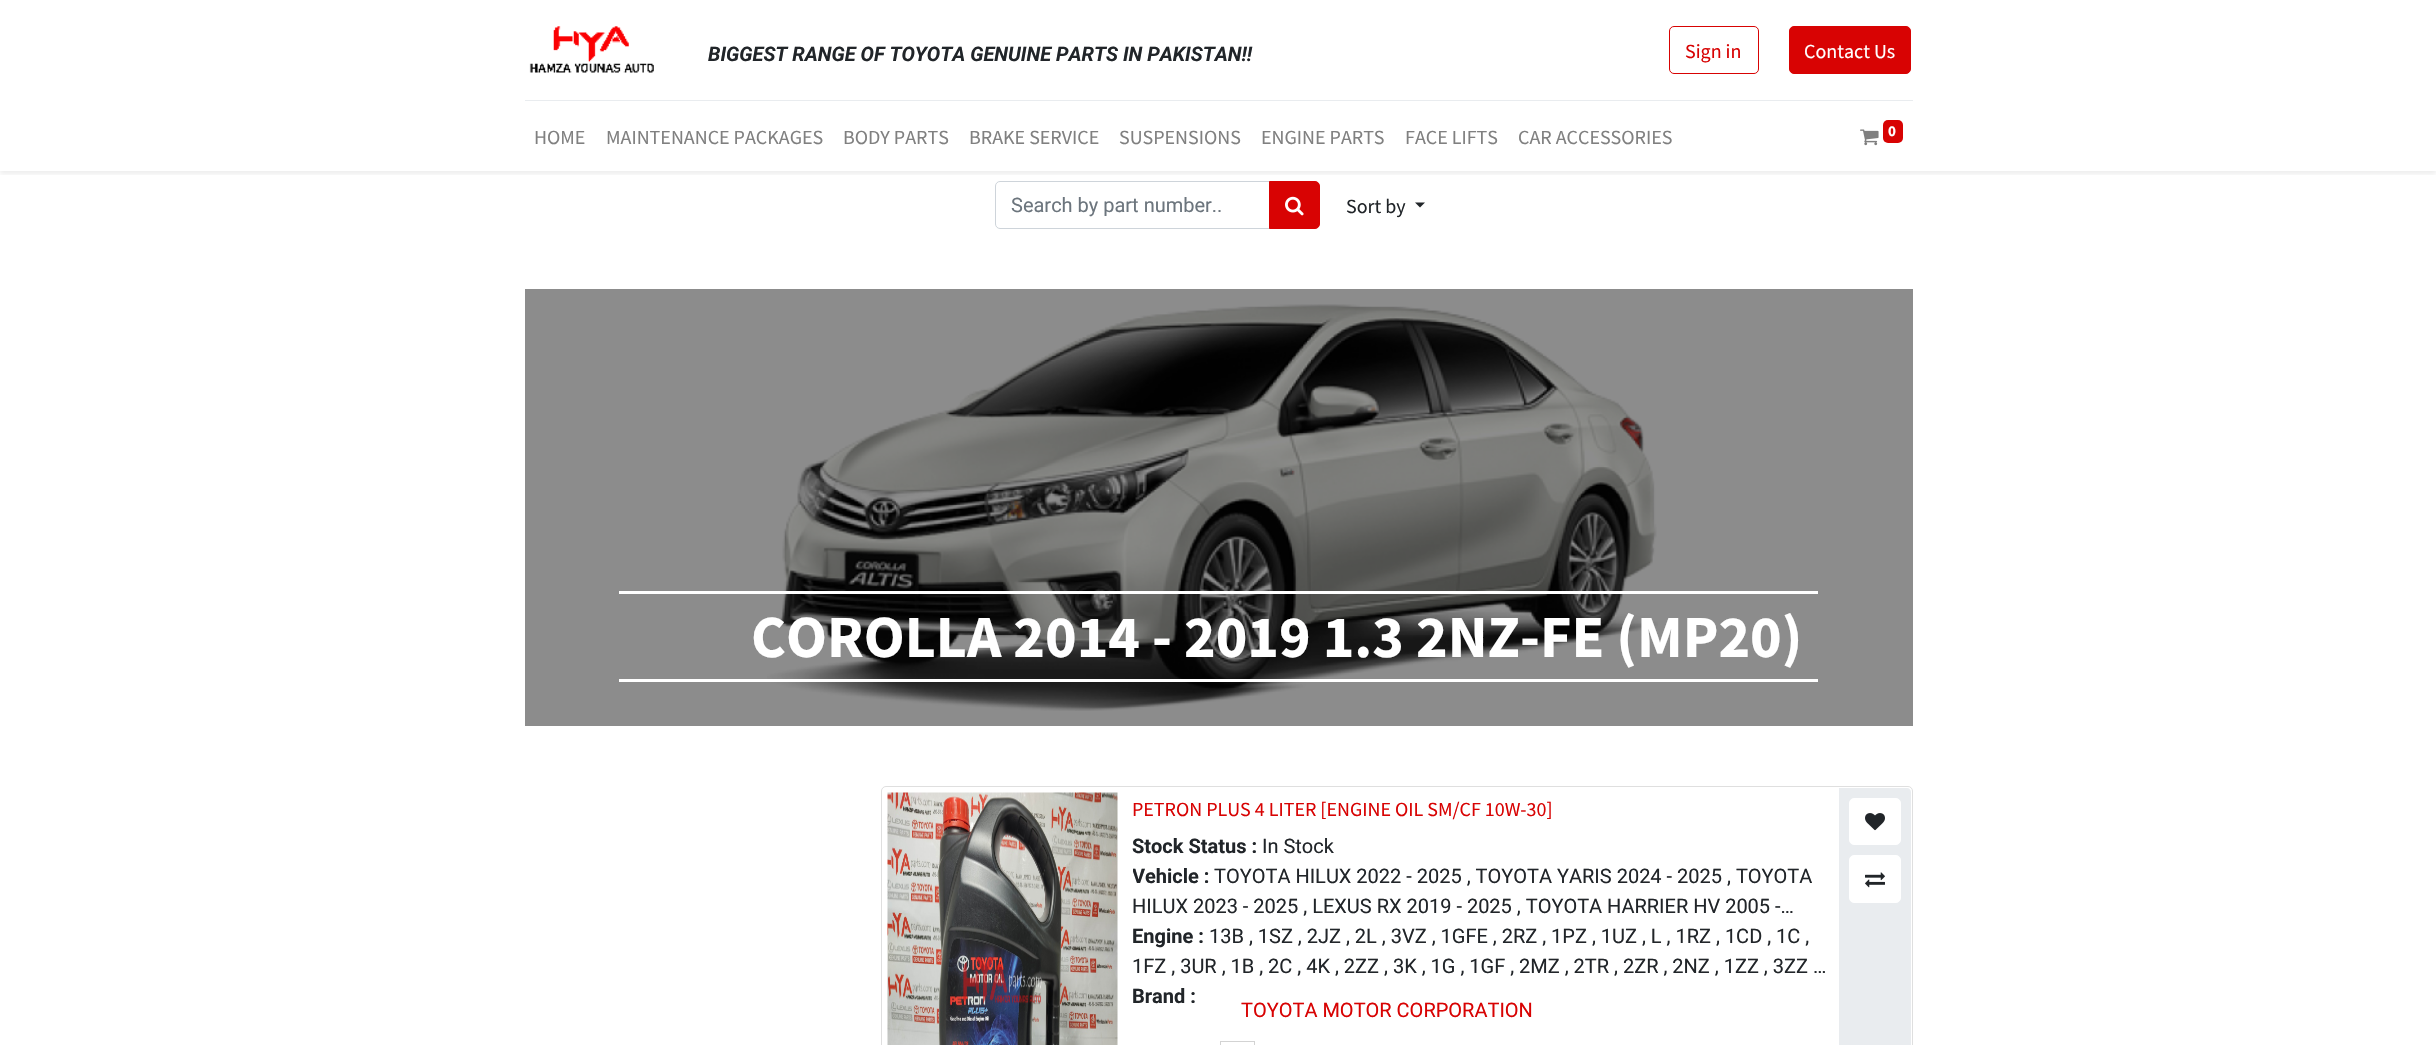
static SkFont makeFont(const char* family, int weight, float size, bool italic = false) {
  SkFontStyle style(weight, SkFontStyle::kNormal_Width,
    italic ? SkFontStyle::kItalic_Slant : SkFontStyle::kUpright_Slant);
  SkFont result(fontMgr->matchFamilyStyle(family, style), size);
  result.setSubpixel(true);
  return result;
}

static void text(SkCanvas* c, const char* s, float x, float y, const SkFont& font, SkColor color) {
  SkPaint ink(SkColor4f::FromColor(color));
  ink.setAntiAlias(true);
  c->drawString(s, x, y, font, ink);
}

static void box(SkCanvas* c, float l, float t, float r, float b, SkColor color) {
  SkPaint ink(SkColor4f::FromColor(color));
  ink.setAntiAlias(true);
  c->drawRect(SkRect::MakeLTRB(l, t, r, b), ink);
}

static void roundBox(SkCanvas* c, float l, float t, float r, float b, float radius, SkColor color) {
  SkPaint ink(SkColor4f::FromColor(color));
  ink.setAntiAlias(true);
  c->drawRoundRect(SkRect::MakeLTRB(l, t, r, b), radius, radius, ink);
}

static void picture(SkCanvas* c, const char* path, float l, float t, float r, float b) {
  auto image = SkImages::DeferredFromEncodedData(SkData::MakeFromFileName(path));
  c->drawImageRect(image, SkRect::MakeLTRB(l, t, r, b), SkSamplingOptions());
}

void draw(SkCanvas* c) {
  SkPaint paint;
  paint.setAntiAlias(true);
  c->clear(0xffffffff);
  box(c, 525, 289, 1913, 726, 0xff8c8c8c);
  paint.setStyle(SkPaint::kStroke_Style);
  paint.setStrokeWidth(1);
  paint.setColor(0xffced4da);
  c->drawPath(SkPathBuilder().moveTo(1000, 181.5f).lineTo(1269.5f, 181.5f).lineTo(1269.5f, 228.5f).lineTo(1000, 228.5f).cubicTo(997.5f, 228.5f, 995.5f, 226.5f, 995.5f, 224).lineTo(995.5f, 186).cubicTo(995.5f, 183.5f, 997.5f, 181.5f, 1000, 181.5f).close().detach(), paint);
  paint.setStyle(SkPaint::kFill_Style);
  paint.setColor(0xffd80303);
  c->drawPath(SkPathBuilder().moveTo(1269.5f, 181.5f).lineTo(1315, 181.5f).cubicTo(1317.5f, 181.5f, 1319.5f, 183.5f, 1319.5f, 186).lineTo(1319.5f, 224).cubicTo(1319.5f, 226.5f, 1317.5f, 228.5f, 1315, 228.5f).lineTo(1269.5f, 228.5f).close().detach(), paint);
  paint.setStyle(SkPaint::kStroke_Style);
  c->drawPath(SkPathBuilder().moveTo(1269.5f, 181.5f).lineTo(1315, 181.5f).cubicTo(1317.5f, 181.5f, 1319.5f, 183.5f, 1319.5f, 186).lineTo(1319.5f, 224).cubicTo(1319.5f, 226.5f, 1317.5f, 228.5f, 1315, 228.5f).lineTo(1269.5f, 228.5f).close().detach(), paint);
  c->save();
  c->clipRect(SkRect::MakeLTRB(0, 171, 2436, 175));
  paint.setStyle(SkPaint::kFill_Style);
  paint.setColor(0x12000000);
  paint.setMaskFilter(SkMaskFilter::MakeBlur(kNormal_SkBlurStyle, 2.5f));
  c->drawRect(SkRect::MakeLTRB(0, 3, 2436, 174), paint);
  paint.setMaskFilter(nullptr);
  c->restore();
  picture(c, "img_01.png", 529, 26, 654, 73);
  SkFont face1 = makeFont("Roboto", 700, 20, true);
  text(c, "BIGGEST RANGE OF TOYOTA GENUINE PARTS IN PAKISTAN!!", 708, 61, face1, 0xff212529);
  paint.setStyle(SkPaint::kStroke_Style);
  paint.setColor(0xffd80303);
  c->drawRoundRect(SkRect::MakeLTRB(1669.5f, 26.5f, 1758.5f, 73.5f), 4.5f, 4.5f, paint);
  SkFont face2 = makeFont("Source Sans Pro", 400, 20);
  text(c, "Sign in", 1685, 58, face2, 0xffd80303);
  paint.setStyle(SkPaint::kFill_Style);
  c->drawRoundRect(SkRect::MakeLTRB(1789.5f, 26.5f, 1910.5f, 73.5f), 4.5f, 4.5f, paint);
  paint.setStyle(SkPaint::kStroke_Style);
  c->drawRoundRect(SkRect::MakeLTRB(1789.5f, 26.5f, 1910.5f, 73.5f), 4.5f, 4.5f, paint);
  text(c, "Contact Us", 1804, 58, face2, 0xffffffff);
  box(c, 525, 100, 1913, 101, 0xffe9ecef);
  text(c, "HOME", 534, 144, face2, 0xff808080);
  text(c, "MAINTENANCE PACKAGES", 606, 144, face2, 0xff808080);
  text(c, "BODY PARTS", 843, 144, face2, 0xff808080);
  text(c, "BRAKE SERVICE", 969, 144, face2, 0xff808080);
  text(c, "SUSPENSIONS", 1119, 144, face2, 0xff808080);
  text(c, "ENGINE PARTS", 1261, 144, face2, 0xff808080);
  text(c, "FACE LIFTS", 1405, 144, face2, 0xff808080);
  text(c, "CAR ACCESSORIES", 1518, 144, face2, 0xff808080);
  picture(c, "img_02.png", 1860, 129, 1879, 146);
  roundBox(c, 1883, 120, 1903, 143, 5, 0xffd80303);
  SkFont face3 = makeFont("Source Sans Pro", 700, 15);
  text(c, "0", 1888, 136, face3, 0xffffffff);
  SkFont face4 = makeFont("Roboto", 400, 20);
  text(c, "Search by part number..", 1011, 212, face4, 0xff6c757d);
  picture(c, "img_03.png", 1285, 196, 1304, 216);
  text(c, "Sort by", 1346, 213, face2, 0xff212529);
  paint.setStyle(SkPaint::kFill_Style);
  paint.setColor(0xff212529);
  c->drawPath(SkPathBuilder().moveTo(1415, 202.5f).lineTo(1425, 202.5f).lineTo(1420, 207.5f).close().detach(), paint);
  picture(c, "img_04.png", 767, 304, 1658, 711);
  box(c, 619, 591, 1818, 594, 0xffffffff);
  SkFont face5 = makeFont("Source Sans Pro", 700, 60);
  text(c, "COROLLA 2014 - 2019 1.3 2NZ-FE (MP20)", 751, 657, face5, 0xffffffff);
  box(c, 619, 679, 1818, 682, 0xffffffff);
  paint.setStyle(SkPaint::kStroke_Style);
  paint.setColor(0xffdfdfdf);
  c->drawRoundRect(SkRect::MakeLTRB(881.5f, 786.5f, 1912.5f, 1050.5f), 4.5f, 4.5f, paint);
  picture(c, "img_05.png", 887, 792, 1118, 1045);
  text(c, "PETRON PLUS 4 LITER [ENGINE OIL SM/CF 10W-30]", 1132, 816, face2, 0xffd80303);
  SkFont face6 = makeFont("Roboto", 700, 20);
  text(c, "Stock Status :", 1132, 853, face6, 0xff212529);
  text(c, "In Stock", 1262, 853, face4, 0xff212529);
  c->save();
  c->clipRect(SkRect::MakeLTRB(1133, 861, 1829, 921));
  text(c, "Vehicle :", 1132, 883, face6, 0xff212529);
  c->restore();
  text(c, "TOYOTA HILUX 2022 - 2025 , TOYOTA YARIS 2024 - 2025 , TOYOTA", 1214, 883, face4, 0xff212529);
  text(c, "HILUX 2023 - 2025 , LEXUS RX 2019 - 2025 , TOYOTA HARRIER HV 2005 -…", 1132, 913, face4, 0xff212529);
  text(c, "Engine :", 1132, 943, face6, 0xff212529);
  text(c, "13B , 1SZ , 2JZ , 2L , 3VZ , 1GFE , 2RZ , 1PZ , 1UZ , L , 1RZ , 1CD , 1C ,", 1209, 943, face4, 0xff212529);
  text(c, "1FZ , 3UR , 1B , 2C , 4K , 2ZZ , 3K , 1G , 1GF , 2MZ , 2TR , 2ZR , 2NZ , 1ZZ , 3ZZ …", 1132, 973, face4, 0xff212529);
  text(c, "Brand :", 1132, 1003, face6, 0xff212529);
  text(c, "TOYOTA MOTOR CORPORATION", 1241, 1017, face4, 0xffd80303);
  paint.setColor(0xffd3d3d3);
  c->drawRect(SkRect::MakeLTRB(1220.5f, 1041.5f, 1254.5f, 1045.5f), paint);
  paint.setStyle(SkPaint::kFill_Style);
  paint.setColor(0xffe9ecef);
  c->drawPath(SkPathBuilder().moveTo(1839, 788).lineTo(1907, 788).cubicTo(1909, 788, 1911, 790, 1911, 792).lineTo(1911, 1045).lineTo(1839, 1045).close().detach(), paint);
  paint.setColor(0xffffffff);
  c->drawRoundRect(SkRect::MakeLTRB(1849.5f, 798.5f, 1900.5f, 844.5f), 4.5f, 4.5f, paint);
  paint.setStyle(SkPaint::kStroke_Style);
  c->drawRoundRect(SkRect::MakeLTRB(1849.5f, 798.5f, 1900.5f, 844.5f), 4.5f, 4.5f, paint);
  picture(c, "img_06.png", 1865, 813, 1885, 831);
  paint.setStyle(SkPaint::kFill_Style);
  c->drawRoundRect(SkRect::MakeLTRB(1849.5f, 855.5f, 1900.5f, 902.5f), 4.5f, 4.5f, paint);
  paint.setStyle(SkPaint::kStroke_Style);
  c->drawRoundRect(SkRect::MakeLTRB(1849.5f, 855.5f, 1900.5f, 902.5f), 4.5f, 4.5f, paint);
  picture(c, "img_07.png", 1865, 872, 1885, 888);
}
